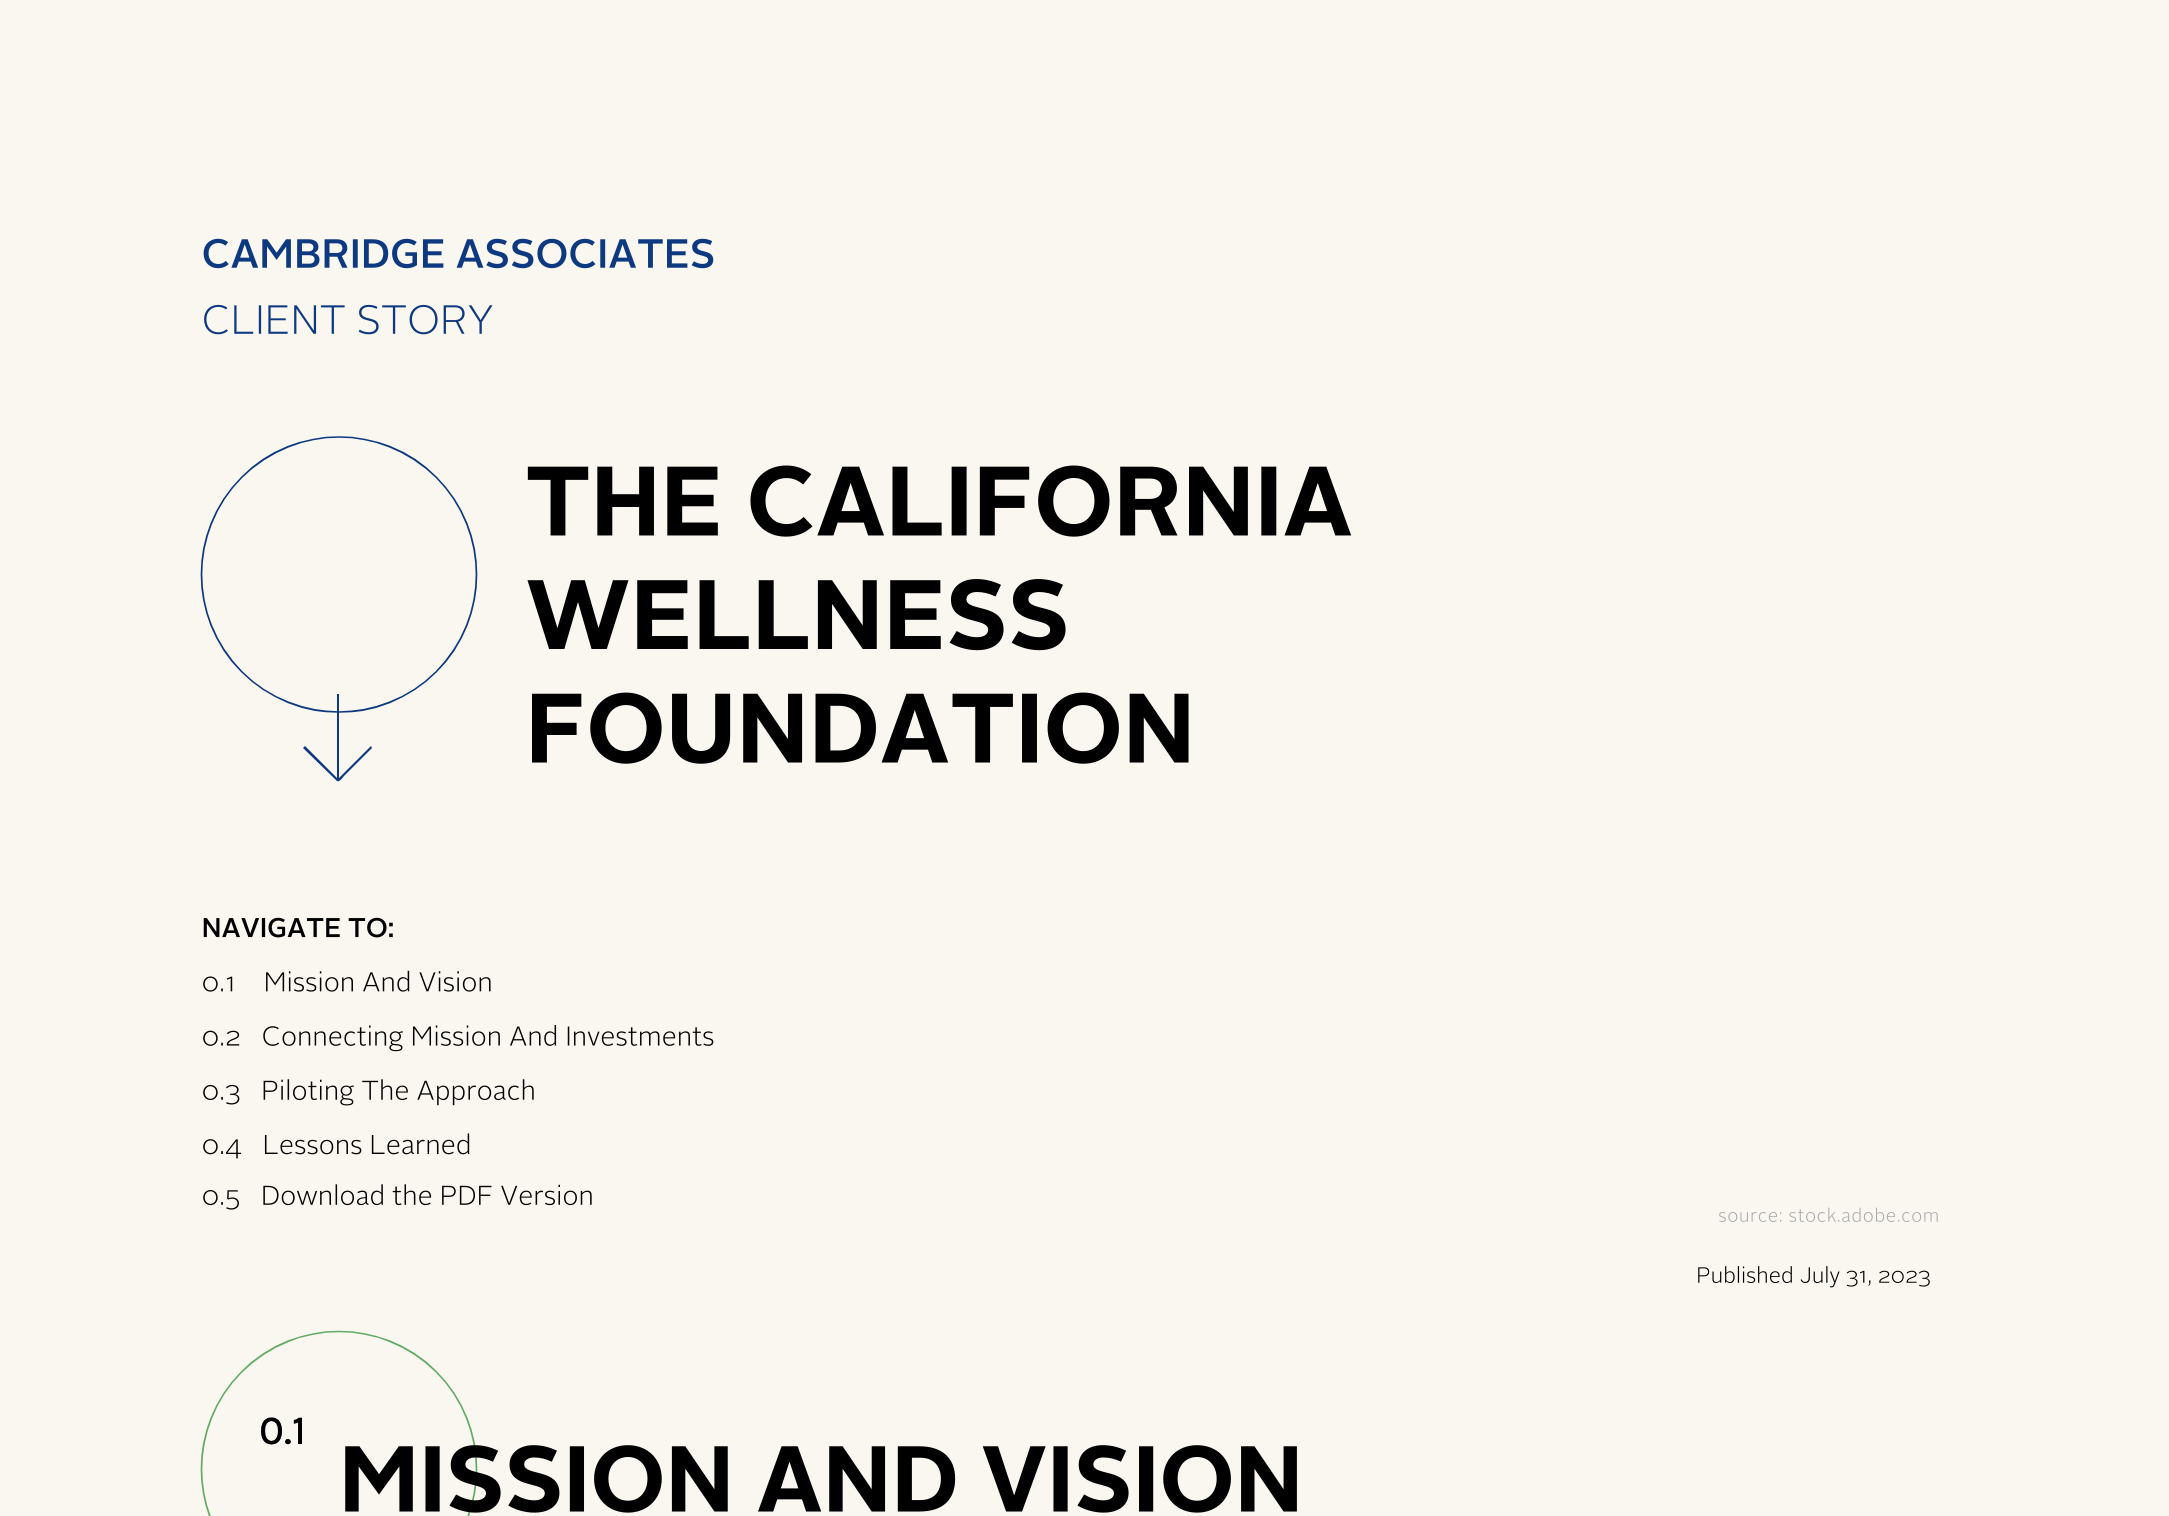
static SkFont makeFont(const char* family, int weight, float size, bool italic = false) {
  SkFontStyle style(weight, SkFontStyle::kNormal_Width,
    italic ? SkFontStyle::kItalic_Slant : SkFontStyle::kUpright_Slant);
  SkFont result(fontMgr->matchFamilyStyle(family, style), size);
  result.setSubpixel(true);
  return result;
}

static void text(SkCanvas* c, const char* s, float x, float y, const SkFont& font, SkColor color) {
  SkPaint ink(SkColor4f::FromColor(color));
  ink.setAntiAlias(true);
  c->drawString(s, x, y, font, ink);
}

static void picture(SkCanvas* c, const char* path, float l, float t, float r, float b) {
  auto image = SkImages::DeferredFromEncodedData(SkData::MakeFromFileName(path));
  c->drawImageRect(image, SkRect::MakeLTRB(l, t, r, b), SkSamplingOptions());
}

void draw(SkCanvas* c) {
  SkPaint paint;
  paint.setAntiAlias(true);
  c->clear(0xfffaf6f0);
  picture(c, "img_01.png", 203, 238, 714, 269);
  picture(c, "img_02.png", 204, 304, 493, 335);
  paint.setStyle(SkPaint::kStroke_Style);
  paint.setStrokeWidth(1.7f);
  paint.setColor(0xff0c3980);
  c->drawCircle(339, 574.5f, 137.5f, paint);
  picture(c, "img_03.png", 527, 465, 1352, 537);
  picture(c, "img_04.png", 527, 579, 1066, 651);
  picture(c, "img_05.png", 532, 692, 1189, 764);
  paint.setStyle(SkPaint::kFill_Style);
  c->drawPath(SkPathBuilder().moveTo(305, 746).lineTo(303, 748).lineTo(337, 781).cubicTo(339, 783, 344, 776, 344, 776).lineTo(372, 748).lineTo(371, 746).lineTo(339, 778).lineTo(339, 694).lineTo(337, 694).lineTo(337, 778).close().moveTo(338, 779).lineTo(337, 779).close().detach(), paint);
  picture(c, "img_06.png", 203, 917, 393, 938);
  picture(c, "img_07.png", 203, 970, 491, 992);
  picture(c, "img_08.png", 203, 1025, 714, 1052);
  picture(c, "img_09.png", 203, 1079, 534, 1106);
  picture(c, "img_10.png", 203, 1133, 470, 1159);
  picture(c, "img_11.png", 203, 1184, 592, 1210);
  picture(c, "img_12.png", 1719, 1207, 1938, 1222);
  picture(c, "img_13.png", 1698, 1266, 1930, 1288);
  paint.setStyle(SkPaint::kStroke_Style);
  paint.setColor(0xff63ab64);
  c->drawCircle(339, 1469, 137.5f, paint);
  SkFont face1 = makeFont("Karla", 500, 41);
  text(c, "0.1", 259, 1444, face1, 0xff000000);
  picture(c, "img_14.png", 345, 1445, 1297, 1513);
}
